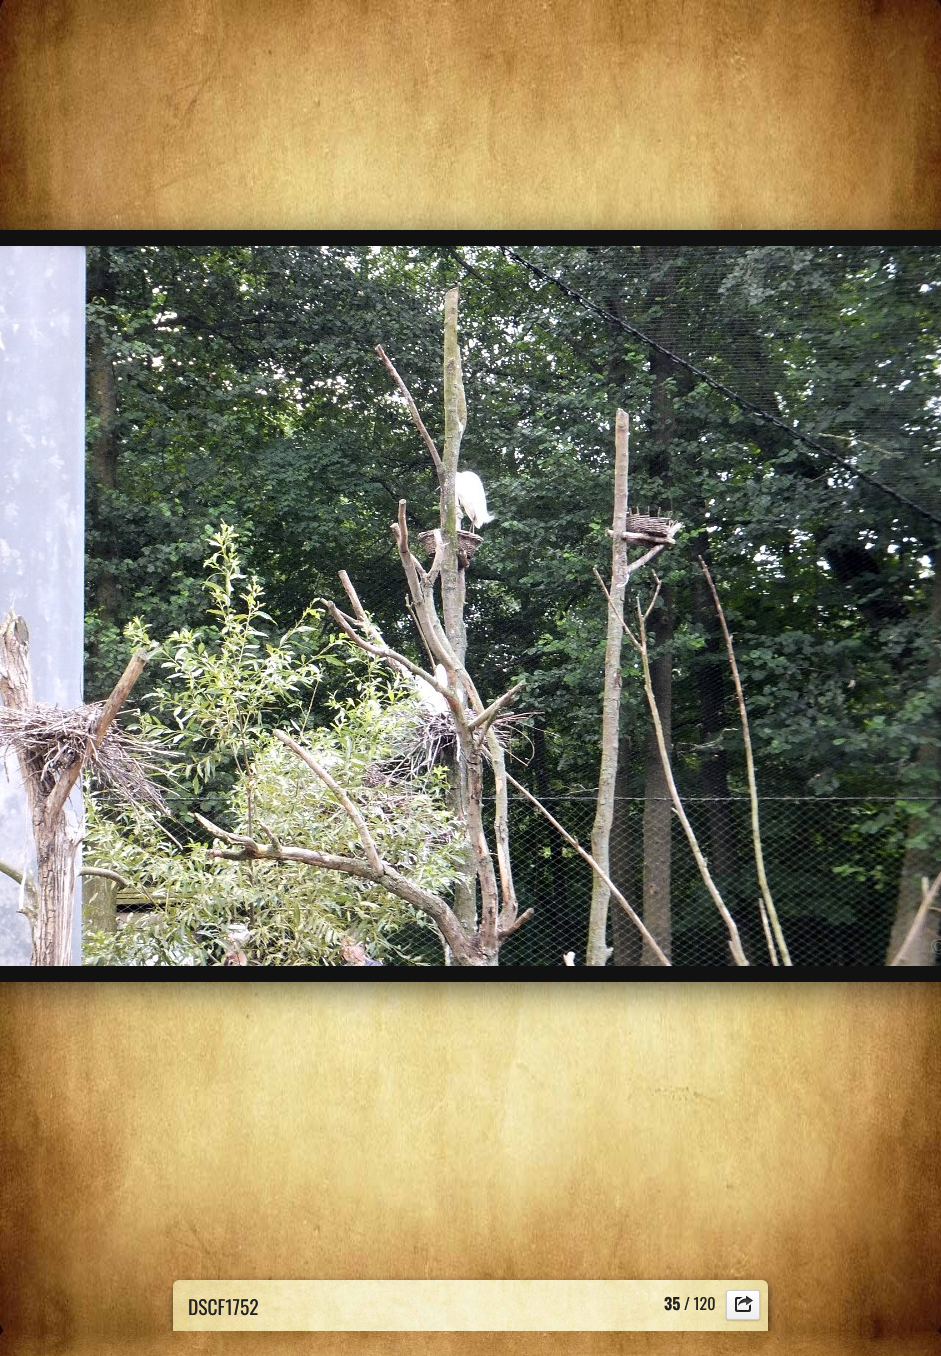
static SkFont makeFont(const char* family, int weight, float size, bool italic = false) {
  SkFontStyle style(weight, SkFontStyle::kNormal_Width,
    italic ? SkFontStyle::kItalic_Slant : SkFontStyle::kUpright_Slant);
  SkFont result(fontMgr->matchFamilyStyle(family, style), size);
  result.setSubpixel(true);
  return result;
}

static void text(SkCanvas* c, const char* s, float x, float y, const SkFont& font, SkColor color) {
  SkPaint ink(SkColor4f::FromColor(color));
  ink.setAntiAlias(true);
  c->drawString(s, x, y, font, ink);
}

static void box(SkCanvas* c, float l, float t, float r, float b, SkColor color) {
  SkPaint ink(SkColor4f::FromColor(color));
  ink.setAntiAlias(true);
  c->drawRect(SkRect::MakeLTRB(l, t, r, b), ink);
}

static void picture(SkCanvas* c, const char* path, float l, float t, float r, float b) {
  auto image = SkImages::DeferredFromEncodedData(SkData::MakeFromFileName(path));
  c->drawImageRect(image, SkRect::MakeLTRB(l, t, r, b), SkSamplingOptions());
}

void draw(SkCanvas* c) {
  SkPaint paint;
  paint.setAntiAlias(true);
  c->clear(0xffffffff);
  picture(c, "img_01.png", 0, 0, 941, 1331);
  paint.setColor(0x99000000);
  paint.setMaskFilter(SkMaskFilter::MakeBlur(kNormal_SkBlurStyle, 16));
  c->drawRect(SkRect::MakeLTRB(-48, 236, 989, 988), paint);
  paint.setMaskFilter(nullptr);
  box(c, 0, 230, 941, 982, 0xff111111);
  picture(c, "img_02.png", 0, 246, 941, 966);
  picture(c, "img_05.png", 0, 1331, 941, 1356);
  c->save();
  c->clipRect(SkRect::MakeLTRB(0, 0, 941, 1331));
  paint.setMaskFilter(SkMaskFilter::MakeBlur(kNormal_SkBlurStyle, 4));
  c->drawRoundRect(SkRect::MakeLTRB(174, 1283, 769, 1334), 6, 6, paint);
  paint.setMaskFilter(nullptr);
  c->restore();
  picture(c, "img_03.png", 173, 1280, 768, 1331);
  SkFont face1 = makeFont("Oswald", 400, 19.5f);
  text(c, "DSCF1752", 188, 1315, face1, 0xff222222);
  SkFont face2 = makeFont("Oswald", 700, 16);
  text(c, "35", 664, 1310, face2, 0xff222222);
  SkFont face3 = makeFont("Oswald", 400, 16);
  text(c, "/ 120", 684, 1310, face3, 0xff222222);
  paint.setColor(0x33000000);
  paint.setMaskFilter(SkMaskFilter::MakeBlur(kNormal_SkBlurStyle, 1));
  c->drawRoundRect(SkRect::MakeLTRB(726, 1291, 760, 1321), 2, 2, paint);
  paint.setMaskFilter(nullptr);
  {
    const SkColor colors[] = {0xffffffff, 0xffeeeeee};
    const float stops[] = {0, 1};
    const SkPoint ends[] = {{743, 1291}, {743, 1319}};
    paint.setShader(SkGradientShader::MakeLinear(ends, colors, stops, 2, SkTileMode::kClamp));
    paint.setAlpha(255);
  }
  c->drawRoundRect(SkRect::MakeLTRB(727, 1291, 759, 1319), 1, 1, paint);
  paint.setStyle(SkPaint::kStroke_Style);
  paint.setStrokeWidth(1);
  paint.setShader(nullptr);
  paint.setColor(0xffcccccc);
  c->drawRoundRect(SkRect::MakeLTRB(726.5f, 1290.5f, 759.5f, 1319.5f), 1.5f, 1.5f, paint);
  picture(c, "img_04.png", 735, 1295, 753, 1312);
}
